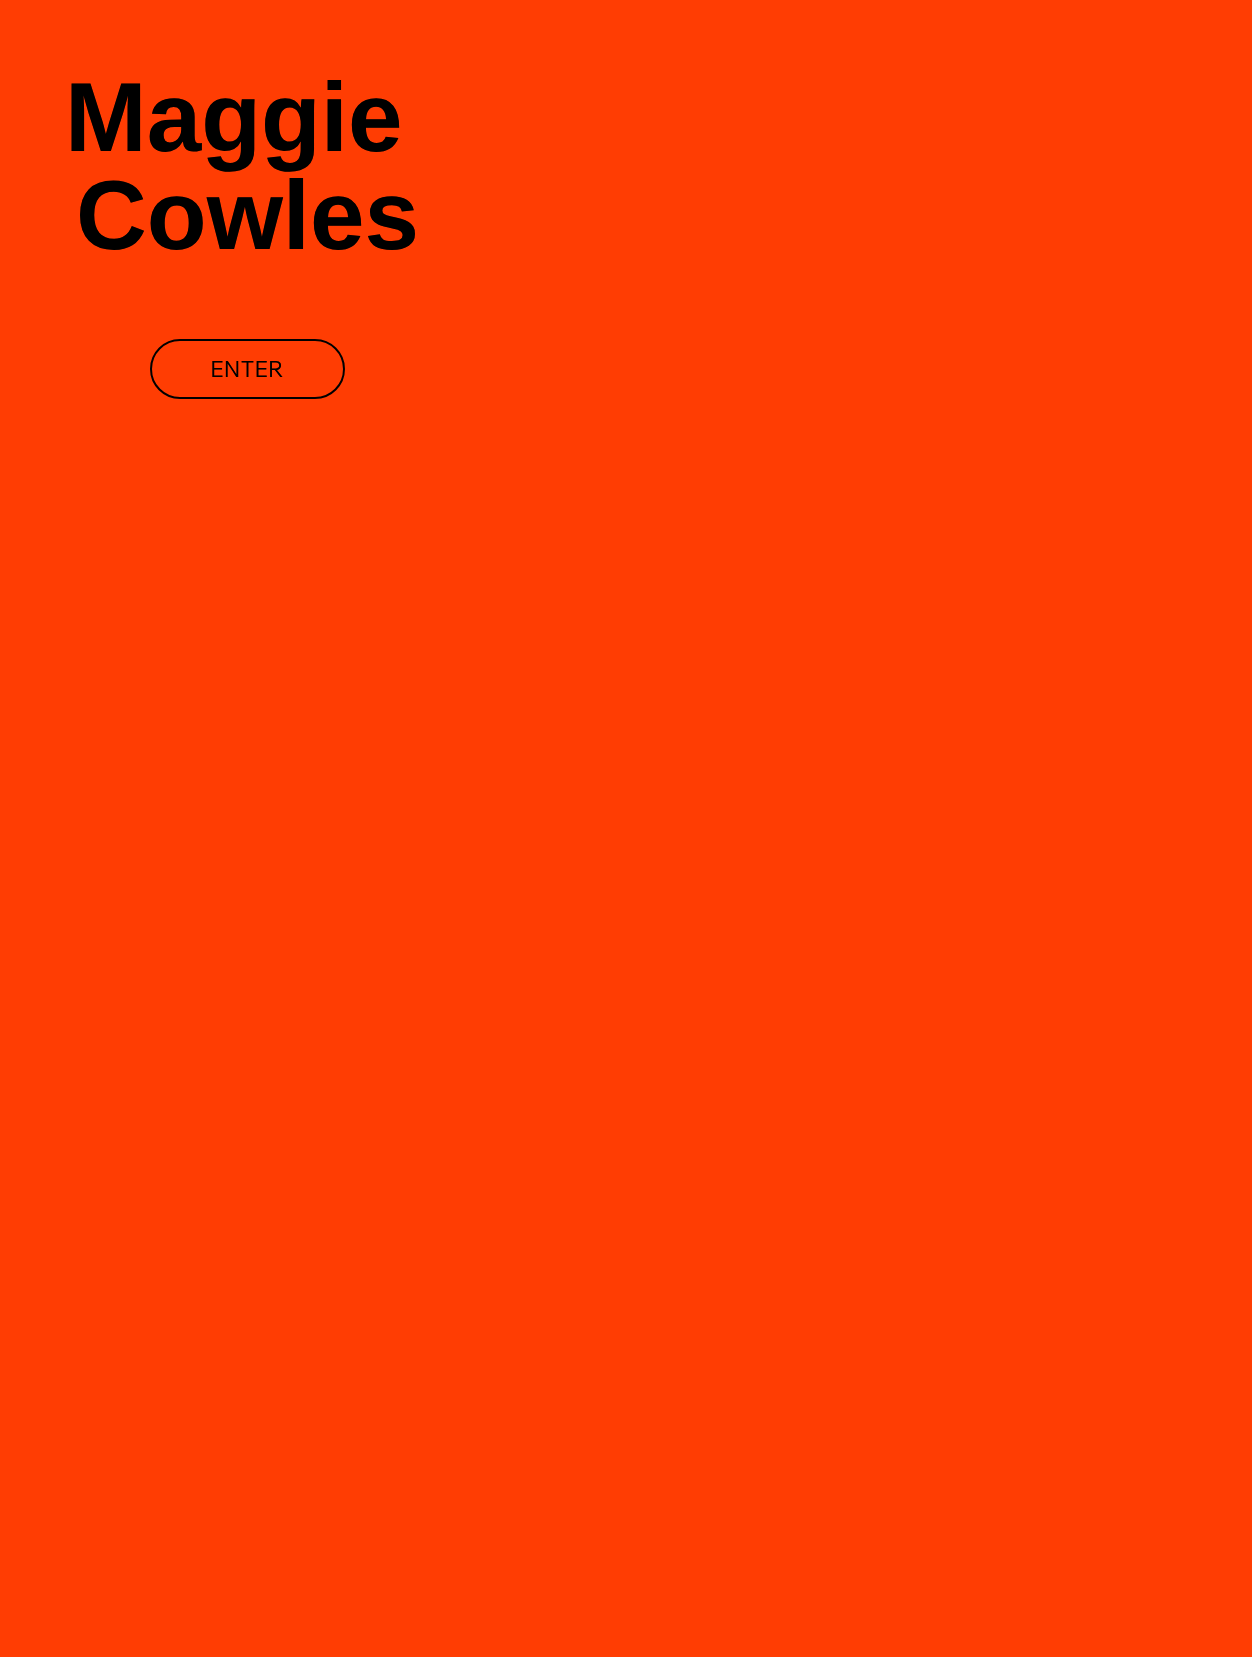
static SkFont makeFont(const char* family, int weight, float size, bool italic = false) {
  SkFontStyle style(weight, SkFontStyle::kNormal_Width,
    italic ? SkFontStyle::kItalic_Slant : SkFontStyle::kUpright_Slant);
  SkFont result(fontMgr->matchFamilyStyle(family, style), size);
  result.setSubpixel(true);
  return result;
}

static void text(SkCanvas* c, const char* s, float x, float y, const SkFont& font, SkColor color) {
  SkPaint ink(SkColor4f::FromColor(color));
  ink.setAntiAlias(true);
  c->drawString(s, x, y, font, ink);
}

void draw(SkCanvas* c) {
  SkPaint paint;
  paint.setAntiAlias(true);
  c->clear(0xffff3d03);
  SkFont face1 = makeFont("Liberation Sans", 700, 98);
  text(c, "Maggie", 65, 151, face1, 0xff000000);
  text(c, "Cowles", 76, 249, face1, 0xff000000);
  paint.setStyle(SkPaint::kStroke_Style);
  paint.setStrokeWidth(2);
  paint.setColor(0xff000000);
  c->drawRoundRect(SkRect::MakeLTRB(151, 340, 344, 398), 29, 29, paint);
  SkFont face2 = makeFont("Wix Madefor Text", 400, 22.5f);
  text(c, "ENTER", 210, 377, face2, 0xff000000);
}
